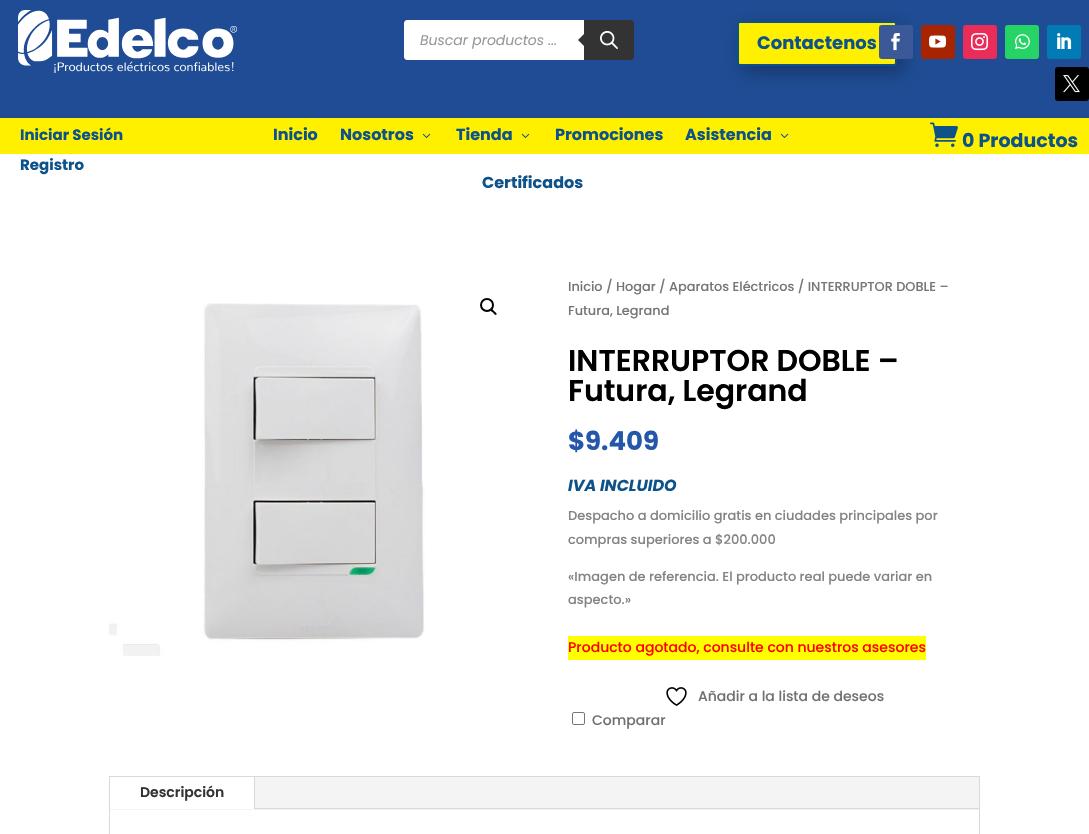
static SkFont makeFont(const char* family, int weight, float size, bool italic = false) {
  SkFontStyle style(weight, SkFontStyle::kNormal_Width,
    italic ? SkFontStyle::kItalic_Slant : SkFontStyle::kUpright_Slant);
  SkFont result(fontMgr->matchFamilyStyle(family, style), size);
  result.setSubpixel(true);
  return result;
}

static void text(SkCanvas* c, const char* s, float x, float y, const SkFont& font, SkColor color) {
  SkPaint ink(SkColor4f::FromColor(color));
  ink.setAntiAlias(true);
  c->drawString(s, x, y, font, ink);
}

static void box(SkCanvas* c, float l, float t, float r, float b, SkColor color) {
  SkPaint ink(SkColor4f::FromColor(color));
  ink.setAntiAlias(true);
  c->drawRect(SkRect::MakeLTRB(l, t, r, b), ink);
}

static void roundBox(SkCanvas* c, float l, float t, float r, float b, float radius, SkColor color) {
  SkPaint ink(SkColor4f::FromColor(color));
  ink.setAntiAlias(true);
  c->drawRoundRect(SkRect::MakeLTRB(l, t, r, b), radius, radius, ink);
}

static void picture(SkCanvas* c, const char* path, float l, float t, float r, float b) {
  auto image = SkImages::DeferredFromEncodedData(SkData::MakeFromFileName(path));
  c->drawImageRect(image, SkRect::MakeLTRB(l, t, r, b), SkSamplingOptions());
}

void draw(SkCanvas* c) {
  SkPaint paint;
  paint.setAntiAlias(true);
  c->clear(0xffffffff);
  box(c, 0, 0, 1089, 118, 0xff1f4c94);
  picture(c, "img_01.png", 18, 10, 237, 73);
  paint.setColor(0xffffffff);
  c->drawRoundRect(SkRect::MakeLTRB(404.5f, 20.5f, 633.5f, 59.5f), 2.5f, 2.5f, paint);
  paint.setStyle(SkPaint::kStroke_Style);
  paint.setStrokeWidth(1);
  c->drawRoundRect(SkRect::MakeLTRB(404.5f, 20.5f, 633.5f, 59.5f), 2.5f, 2.5f, paint);
  SkFont face1 = makeFont("Poppins", 400, 14, true);
  text(c, "Buscar productos ...", 420, 45, face1, 0xff999999);
  paint.setStyle(SkPaint::kFill_Style);
  paint.setColor(0xff333333);
  c->drawPath(SkPathBuilder().moveTo(584, 20).lineTo(632, 20).cubicTo(633, 20, 634, 21, 634, 22).lineTo(634, 58).cubicTo(634, 59, 633, 60, 632, 60).lineTo(584, 60).close().detach(), paint);
  c->drawPath(SkPathBuilder().moveTo(586, 32).lineTo(586, 48).lineTo(578, 40).close().detach(), paint);
  picture(c, "img_02.png", 600, 31, 618, 49);
  paint.setColor(0x4d000000);
  paint.setMaskFilter(SkMaskFilter::MakeBlur(kNormal_SkBlurStyle, 9));
  c->drawRoundRect(SkRect::MakeLTRB(743, 27, 903, 72), 3, 3, paint);
  paint.setMaskFilter(nullptr);
  paint.setColor(0xfffff000);
  c->drawRoundRect(SkRect::MakeLTRB(738, 22, 896, 65), 2, 2, paint);
  paint.setStyle(SkPaint::kStroke_Style);
  paint.setStrokeWidth(2);
  paint.setColor(0xff0e528a);
  c->drawRoundRect(SkRect::MakeLTRB(738, 22, 896, 65), 2, 2, paint);
  SkFont face2 = makeFont("Poppins", 700, 18);
  text(c, "Contactenos", 757, 49, face2, 0xff0e528a);
  roundBox(c, 879, 25, 913, 59, 3, 0xff3b5998);
  picture(c, "img_03.png", 891, 33, 900, 51);
  roundBox(c, 921, 25, 955, 59, 3, 0xffa82400);
  picture(c, "img_04.png", 929, 35, 946, 48);
  roundBox(c, 963, 25, 997, 59, 3, 0xffea2c59);
  picture(c, "img_05.png", 971, 33, 988, 51);
  roundBox(c, 1005, 25, 1039, 59, 3, 0xff25d366);
  picture(c, "img_06.png", 1015, 34, 1030, 49);
  roundBox(c, 1047, 25, 1081, 59, 3, 0xff007bb6);
  picture(c, "img_07.png", 1057, 33, 1072, 49);
  roundBox(c, 1055, 67, 1089, 101, 3, 0xff000000);
  picture(c, "img_08.png", 1063, 75, 1080, 93);
  box(c, 0, 118, 1089, 154, 0xfffff000);
  SkFont face3 = makeFont("Poppins", 700, 15);
  text(c, "Iniciar Sesión", 20, 140, face3, 0xff0e528a);
  text(c, "Registro", 20, 170, face3, 0xff0e528a);
  SkFont face4 = makeFont("Poppins", 700, 16);
  text(c, "Inicio", 273, 140, face4, 0xff0e528a);
  text(c, "Nosotros", 340, 140, face4, 0xff0e528a);
  picture(c, "img_09.png", 422, 133, 431, 138);
  text(c, "Tienda", 456, 140, face4, 0xff0e528a);
  picture(c, "img_09.png", 521, 133, 530, 138);
  text(c, "Promociones", 555, 140, face4, 0xff0e528a);
  text(c, "Asistencia", 685, 140, face4, 0xff0e528a);
  picture(c, "img_09.png", 780, 133, 789, 138);
  text(c, "Certificados", 482, 188, face4, 0xff0e528a);
  picture(c, "img_10.png", 930, 122, 958, 147);
  SkFont face5 = makeFont("Poppins", 700, 19);
  text(c, "0 Productos", 962, 147, face5, 0xff0e528a);
  picture(c, "img_11.png", 109, 303, 425, 656);
  paint.setColor(0xff000000);
  c->drawCircle(487, 305, 6, paint);
  paint.setStyle(SkPaint::kFill_Style);
  c->drawPath(SkPathBuilder().moveTo(490.5f, 309).cubicTo(492, 308, 493.5f, 310.5f, 494, 311).cubicTo(495, 312, 497.5f, 313.5f, 496.5f, 314.5f).cubicTo(495, 316, 493.5f, 313, 493, 312.5f).cubicTo(492, 312, 489.5f, 310, 490.5f, 309).close().detach(), paint);
  SkFont face6 = makeFont("Poppins", 500, 12.9f);
  text(c, "Inicio / Hogar / Aparatos Eléctricos / INTERRUPTOR DOBLE –", 568, 291, face6, 0xff767676);
  text(c, "Futura, Legrand", 568, 315, face6, 0xff767676);
  SkFont face7 = makeFont("Poppins", 600, 30);
  text(c, "INTERRUPTOR DOBLE –", 568, 371, face7, 0xff000000);
  text(c, "Futura, Legrand", 568, 401, face7, 0xff000000);
  SkFont face8 = makeFont("Poppins", 700, 26);
  text(c, "$9.409", 568, 450, face8, 0xff2457aa);
  SkFont face9 = makeFont("Poppins", 700, 16, true);
  text(c, "IVA INCLUIDO", 568, 491, face9, 0xff0e528a);
  SkFont face10 = makeFont("Poppins", 500, 13);
  text(c, "Despacho a domicilio gratis en ciudades principales por", 568, 520, face10, 0xff838383);
  text(c, "compras superiores a $200.000", 568, 544, face10, 0xff838383);
  text(c, "«Imagen de referencia. El producto real puede variar en", 568, 581, face10, 0xff838383);
  text(c, "aspecto.»", 568, 604, face10, 0xff838383);
  box(c, 568, 636, 926, 660, 0xffffff00);
  SkFont face11 = makeFont("Poppins", 500, 14);
  text(c, "Producto agotado, consulte con nuestros asesores", 568, 652, face11, 0xffff0000);
  picture(c, "img_12.png", 666, 687, 687, 706);
  text(c, "Añadir a la lista de deseos", 698, 701, face11, 0xff707070);
  paint.setStyle(SkPaint::kStroke_Style);
  paint.setStrokeWidth(1);
  paint.setColor(0xff767676);
  c->drawRoundRect(SkRect::MakeLTRB(572.5f, 712.5f, 584.5f, 724.5f), 1.5f, 1.5f, paint);
  text(c, "Comparar", 592, 725, face11, 0xff707070);
  paint.setColor(0xffd9d9d9);
  c->drawRect(SkRect::MakeLTRB(109.5f, 776.5f, 979.5f, 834.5f), paint);
  box(c, 110, 777, 979, 810, 0xfff4f4f4);
  box(c, 110, 777, 254, 809, 0xffffffff);
  box(c, 254, 777, 255, 809, 0xffd9d9d9);
  SkFont face12 = makeFont("Poppins", 600, 14);
  text(c, "Descripción", 140, 797, face12, 0xff333333);
  box(c, 255, 808, 979, 809, 0xffd9d9d9);
}
